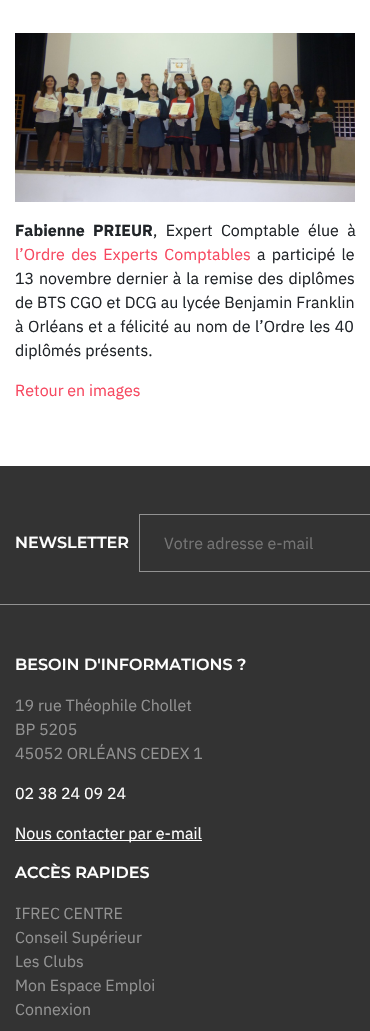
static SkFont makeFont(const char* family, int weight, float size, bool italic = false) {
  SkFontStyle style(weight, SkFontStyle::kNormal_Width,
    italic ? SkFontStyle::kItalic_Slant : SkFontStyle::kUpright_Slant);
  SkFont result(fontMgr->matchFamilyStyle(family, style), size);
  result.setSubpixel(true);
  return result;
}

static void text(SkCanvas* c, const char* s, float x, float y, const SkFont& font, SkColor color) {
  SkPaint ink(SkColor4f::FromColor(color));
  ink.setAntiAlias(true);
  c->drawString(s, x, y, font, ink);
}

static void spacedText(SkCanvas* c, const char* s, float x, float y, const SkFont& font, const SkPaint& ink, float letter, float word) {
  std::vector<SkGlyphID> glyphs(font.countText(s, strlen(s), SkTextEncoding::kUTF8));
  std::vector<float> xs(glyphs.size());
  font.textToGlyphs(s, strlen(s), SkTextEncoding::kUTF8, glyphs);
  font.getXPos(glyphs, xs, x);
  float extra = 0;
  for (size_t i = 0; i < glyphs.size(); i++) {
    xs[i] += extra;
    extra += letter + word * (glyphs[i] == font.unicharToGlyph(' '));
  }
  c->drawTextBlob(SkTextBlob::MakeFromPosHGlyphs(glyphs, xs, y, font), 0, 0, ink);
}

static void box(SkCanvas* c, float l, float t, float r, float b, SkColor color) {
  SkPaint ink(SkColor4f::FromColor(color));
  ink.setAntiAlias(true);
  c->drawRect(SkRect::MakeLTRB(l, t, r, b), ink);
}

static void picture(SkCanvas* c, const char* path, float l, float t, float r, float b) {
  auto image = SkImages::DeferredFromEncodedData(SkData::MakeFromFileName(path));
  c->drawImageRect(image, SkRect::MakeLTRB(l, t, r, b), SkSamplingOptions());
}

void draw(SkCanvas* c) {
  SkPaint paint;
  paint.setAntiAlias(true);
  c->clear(0xffffffff);
  picture(c, "img_01.png", 15, 33, 355, 202);
  SkFont face1 = makeFont("IBM Plex Sans", 700, 16);
  paint.setColor(0xff212529);
  spacedText(c, "Fabienne PRIEUR", 15, 236, face1, paint, 0, 4.5f);
  SkFont face2 = makeFont("IBM Plex Sans", 400, 16);
  spacedText(c, ", Expert Comptable élue à", 153, 236, face2, paint, 0, 4.5f);
  paint.setColor(0xfff74860);
  spacedText(c, "l’Ordre des Experts Comptables", 15, 260, face2, paint, 0, 2.5f);
  paint.setColor(0xff212529);
  spacedText(c, "a participé le", 257, 260, face2, paint, 0, 2.5f);
  spacedText(c, "13 novembre dernier à la remise des diplômes", 15, 284, face2, paint, 0, 1);
  spacedText(c, "de BTS CGO et DCG au lycée Benjamin Franklin", 15, 308, face2, paint, 0, 0.25f);
  spacedText(c, "à Orléans et a félicité au nom de l’Ordre les 40", 15, 332, face2, paint, 0, 0.75f);
  text(c, "diplômés présents.", 15, 356, face2, 0xff212529);
  text(c, "Retour en images", 15, 396, face2, 0xfff74860);
  box(c, 0, 466, 370, 1031, 0xff333333);
  box(c, 0, 604, 370, 605, 0xff929292);
  SkFont face3 = makeFont("Montserrat", 600, 16);
  text(c, "NEWSLETTER", 15, 548, face3, 0xffffffff);
  paint.setStyle(SkPaint::kStroke_Style);
  paint.setStrokeWidth(1);
  paint.setColor(0xff929292);
  c->drawRect(SkRect::MakeLTRB(139.5f, 514.5f, 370.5f, 571.5f), paint);
  text(c, "Votre adresse e-mail", 164, 549, face2, 0xff757575);
  text(c, "BESOIN D'INFORMATIONS ?", 15, 670, face3, 0xffffffff);
  text(c, "19 rue Théophile Chollet", 15, 711, face2, 0xff929292);
  text(c, "BP 5205", 15, 735, face2, 0xff929292);
  text(c, "45052 ORLÉANS CEDEX 1", 15, 759, face2, 0xff929292);
  text(c, "02 38 24 09 24", 15, 799, face2, 0xffffffff);
  box(c, 15, 840, 202, 841, 0xffffffff);
  text(c, "Nous contacter par e-mail", 15, 839, face2, 0xffffffff);
  text(c, "ACCÈS RAPIDES", 15, 878, face3, 0xffffffff);
  text(c, "IFREC CENTRE", 15, 919, face2, 0xff929292);
  text(c, "Conseil Supérieur", 15, 943, face2, 0xff929292);
  text(c, "Les Clubs", 15, 967, face2, 0xff929292);
  text(c, "Mon Espace Emploi", 15, 991, face2, 0xff929292);
  text(c, "Connexion", 15, 1015, face2, 0xff929292);
}
